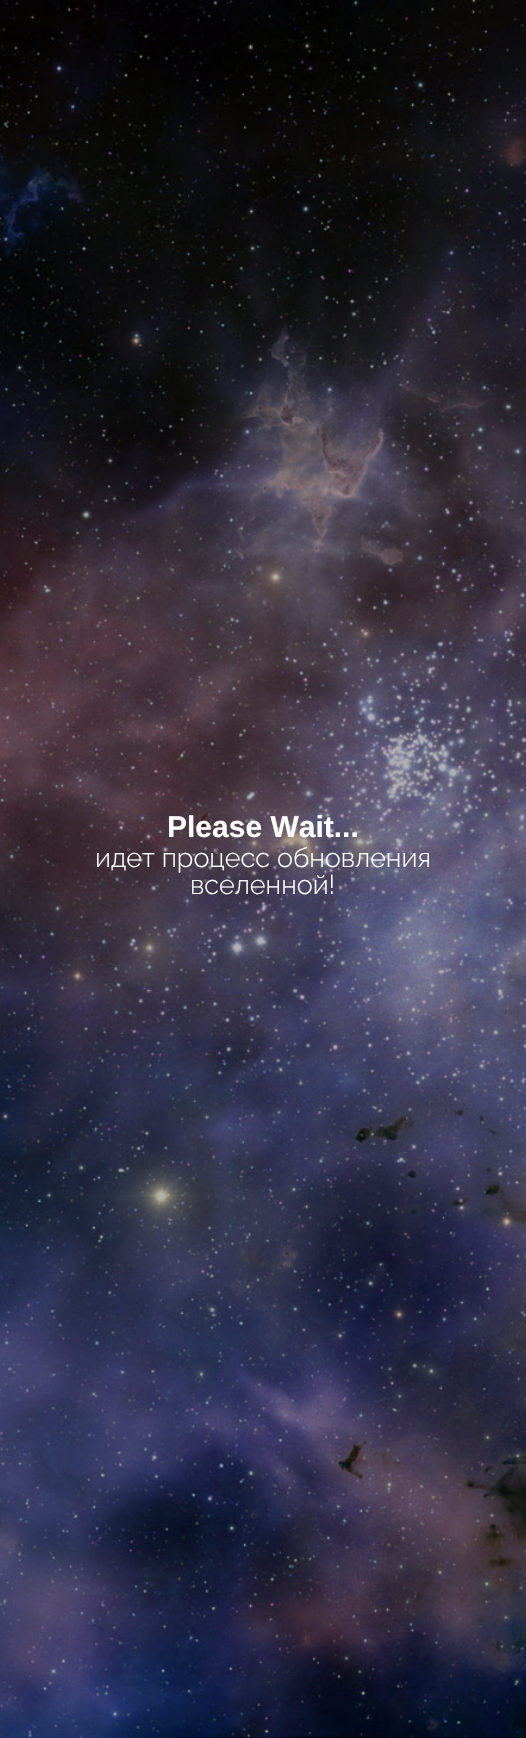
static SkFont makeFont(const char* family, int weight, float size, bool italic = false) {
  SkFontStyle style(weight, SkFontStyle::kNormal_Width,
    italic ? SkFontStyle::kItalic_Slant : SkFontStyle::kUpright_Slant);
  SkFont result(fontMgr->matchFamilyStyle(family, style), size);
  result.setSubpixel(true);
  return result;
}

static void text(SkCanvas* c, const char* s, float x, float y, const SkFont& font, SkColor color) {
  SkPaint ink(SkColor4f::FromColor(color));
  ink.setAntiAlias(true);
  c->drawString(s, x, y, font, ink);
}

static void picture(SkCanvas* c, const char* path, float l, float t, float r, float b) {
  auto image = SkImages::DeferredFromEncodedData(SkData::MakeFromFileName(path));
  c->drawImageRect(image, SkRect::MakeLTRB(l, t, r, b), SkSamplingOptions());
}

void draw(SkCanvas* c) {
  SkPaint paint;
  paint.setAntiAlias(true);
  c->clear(0xffffffff);
  picture(c, "img_01.png", 0, 0, 526, 1738);
  SkFont face1 = makeFont("Liberation Sans", 700, 30);
  text(c, "Please Wait...", 167, 837, face1, 0xffffffff);
  SkFont face2 = makeFont("Raleway", 300, 27);
  text(c, "идет процесс обновления", 95, 867, face2, 0xffffffff);
  text(c, "вселенной!", 190, 894, face2, 0xffffffff);
}
